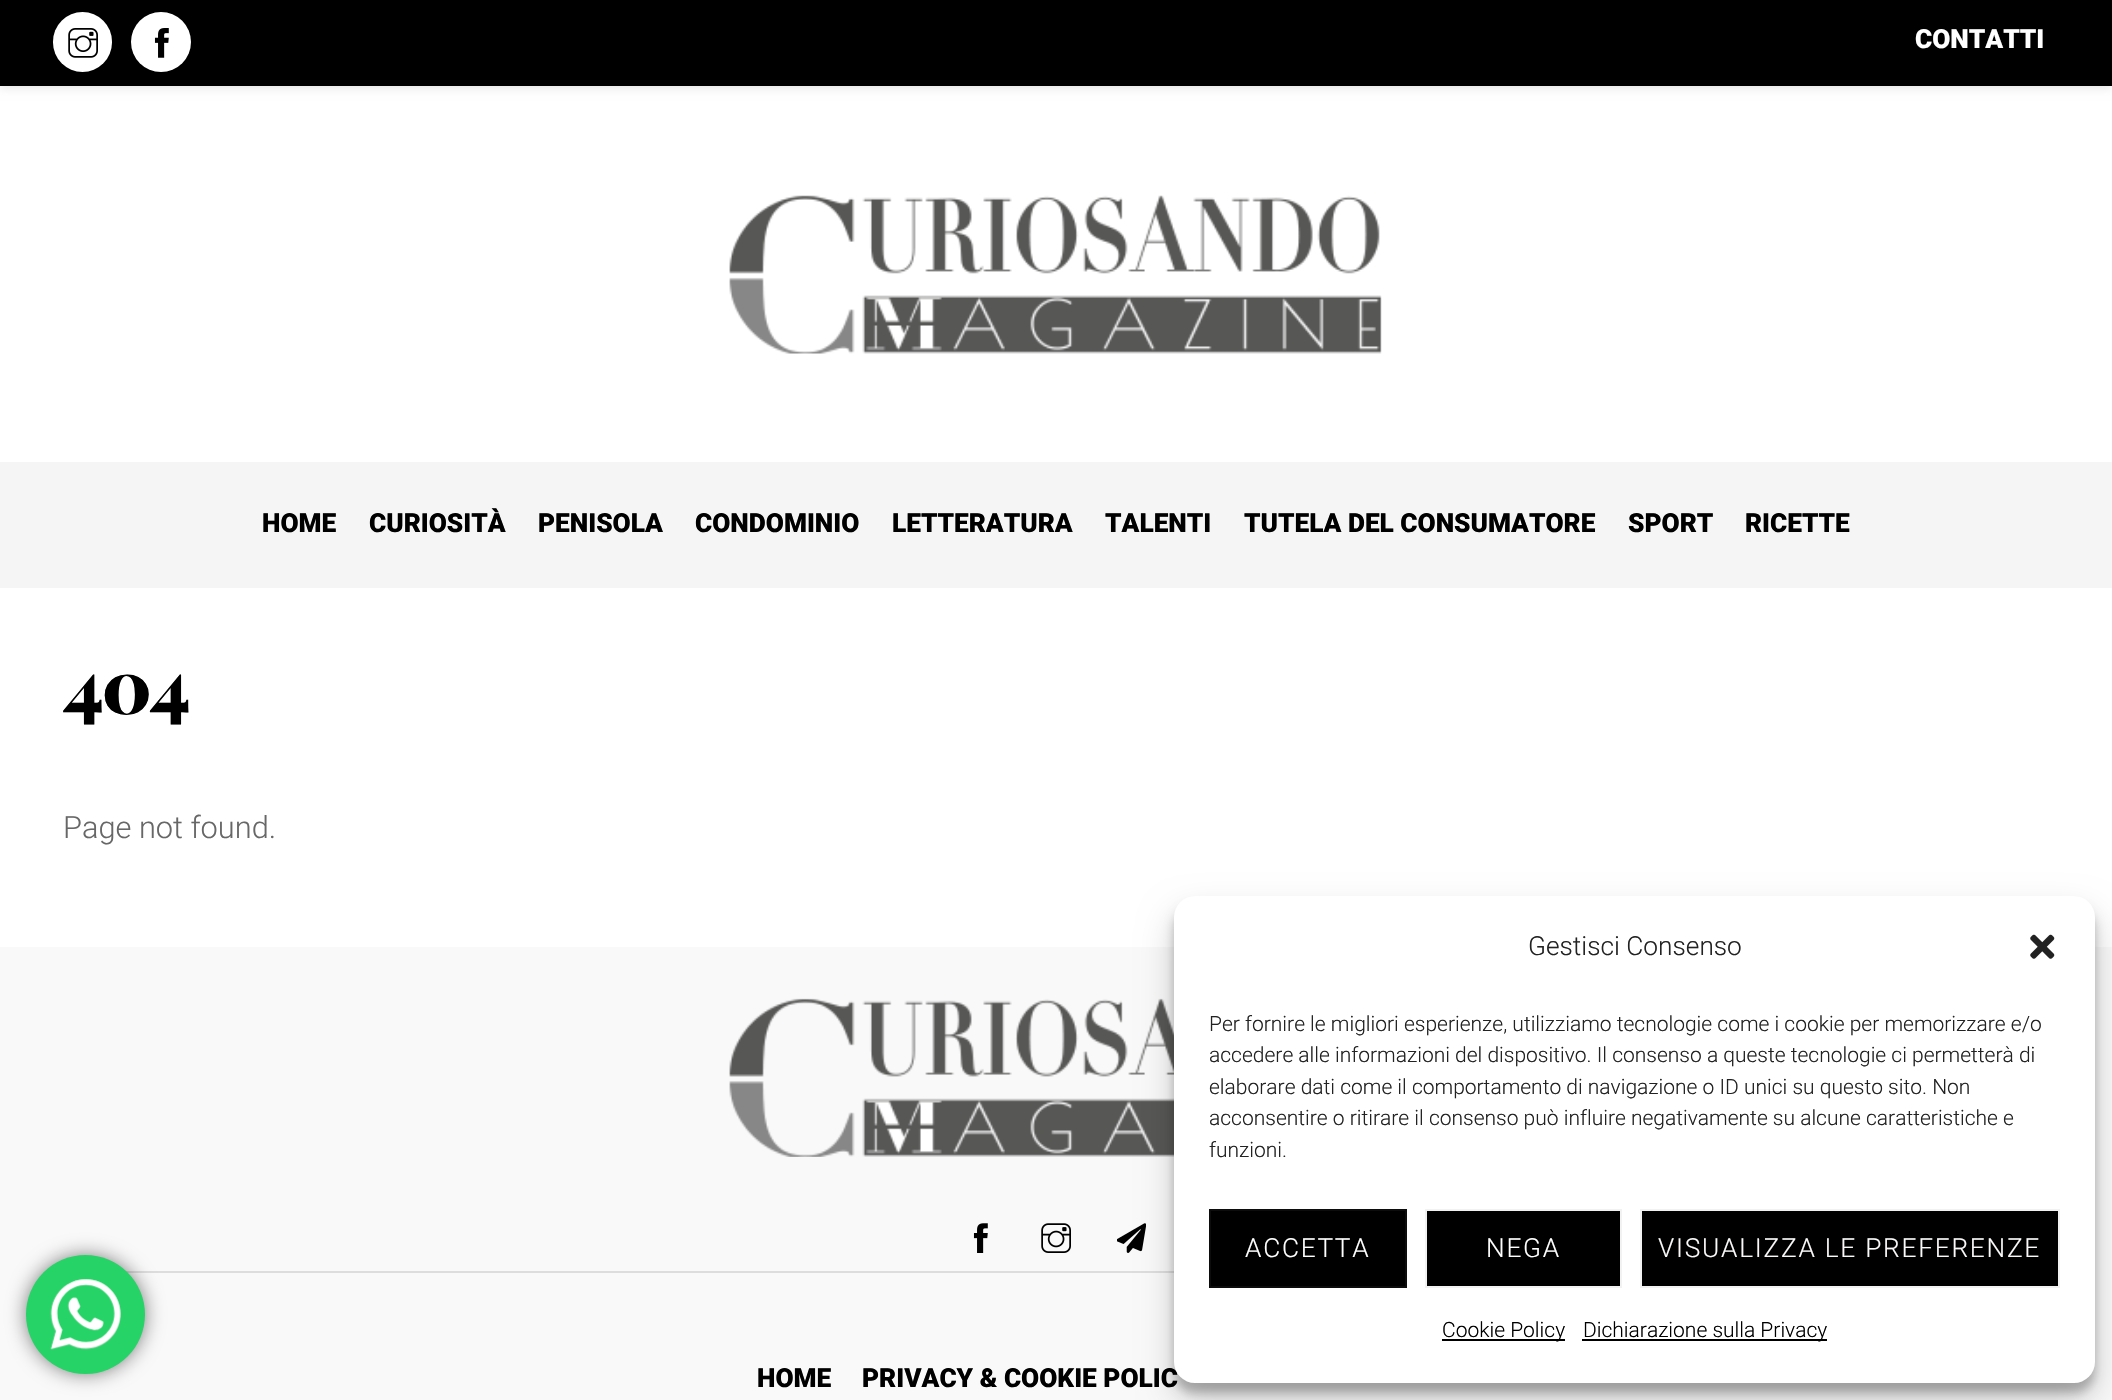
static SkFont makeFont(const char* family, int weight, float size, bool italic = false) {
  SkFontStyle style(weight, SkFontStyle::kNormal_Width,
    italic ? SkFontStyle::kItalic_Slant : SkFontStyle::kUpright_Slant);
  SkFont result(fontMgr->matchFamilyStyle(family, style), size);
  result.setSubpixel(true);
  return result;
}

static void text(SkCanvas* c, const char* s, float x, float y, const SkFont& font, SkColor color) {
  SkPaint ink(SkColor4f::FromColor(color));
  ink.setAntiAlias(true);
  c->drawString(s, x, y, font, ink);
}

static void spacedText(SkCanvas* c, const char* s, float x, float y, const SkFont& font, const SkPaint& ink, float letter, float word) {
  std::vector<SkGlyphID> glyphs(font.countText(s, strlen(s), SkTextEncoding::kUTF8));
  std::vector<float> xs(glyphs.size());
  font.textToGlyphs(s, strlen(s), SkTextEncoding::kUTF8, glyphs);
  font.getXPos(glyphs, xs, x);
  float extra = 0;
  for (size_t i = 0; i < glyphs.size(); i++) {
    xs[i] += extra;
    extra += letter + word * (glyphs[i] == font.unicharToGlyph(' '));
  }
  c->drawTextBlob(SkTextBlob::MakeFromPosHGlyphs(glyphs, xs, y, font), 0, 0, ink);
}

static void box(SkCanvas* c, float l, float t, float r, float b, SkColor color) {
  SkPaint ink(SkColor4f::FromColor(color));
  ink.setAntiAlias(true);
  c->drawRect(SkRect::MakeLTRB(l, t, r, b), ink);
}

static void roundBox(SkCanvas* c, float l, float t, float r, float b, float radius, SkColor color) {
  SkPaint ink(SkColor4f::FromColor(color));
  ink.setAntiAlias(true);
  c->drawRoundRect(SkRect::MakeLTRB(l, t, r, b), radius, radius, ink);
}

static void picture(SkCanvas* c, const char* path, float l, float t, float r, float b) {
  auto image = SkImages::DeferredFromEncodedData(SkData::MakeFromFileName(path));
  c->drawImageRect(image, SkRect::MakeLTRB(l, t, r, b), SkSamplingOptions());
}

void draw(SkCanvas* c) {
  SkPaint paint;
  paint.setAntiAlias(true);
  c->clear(0xffffffff);
  paint.setColor(0x1a000000);
  paint.setMaskFilter(SkMaskFilter::MakeBlur(kNormal_SkBlurStyle, 4.5f));
  c->drawRect(SkRect::MakeLTRB(0, 2, 2112, 88), paint);
  paint.setMaskFilter(nullptr);
  box(c, 0, 0, 2112, 86, 0xff000000);
  roundBox(c, 53, 12, 112, 72, 29.5f, 0xffffffff);
  picture(c, "img_01.png", 68, 28, 98, 58);
  paint.setColor(0xffffffff);
  c->drawCircle(161, 42, 30, paint);
  picture(c, "img_02.png", 154, 28, 169, 58);
  SkFont face1 = makeFont("Roboto", 900, 26.25f);
  text(c, "CONTATTI", 1915, 48, face1, 0xffffffff);
  picture(c, "img_03.png", 729, 195, 1382, 354);
  box(c, 0, 462, 2112, 588, 0xfff5f5f5);
  text(c, "HOME", 262, 532, face1, 0xff000000);
  text(c, "CURIOSITÀ", 369, 532, face1, 0xff000000);
  text(c, "PENISOLA", 538, 532, face1, 0xff000000);
  text(c, "CONDOMINIO", 695, 532, face1, 0xff000000);
  text(c, "LETTERATURA", 892, 532, face1, 0xff000000);
  text(c, "TALENTI", 1105, 532, face1, 0xff000000);
  text(c, "TUTELA DEL CONSUMATORE", 1244, 532, face1, 0xff000000);
  text(c, "SPORT", 1628, 532, face1, 0xff000000);
  text(c, "RICETTE", 1745, 532, face1, 0xff000000);
  SkFont face2 = makeFont("Playfair Display", 900, 74);
  paint.setColor(0xff000000);
  spacedText(c, "404", 63, 714, face2, paint, -2, 0);
  SkFont face3 = makeFont("Roboto", 300, 30.75f);
  text(c, "Page not found.", 63, 838, face3, 0xff676767);
  box(c, 0, 947, 2112, 1400, 0xfff9f9f9);
  picture(c, "img_04.png", 729, 998, 1174, 1157);
  picture(c, "img_05.png", 973, 1223, 988, 1253);
  picture(c, "img_06.png", 1041, 1223, 1071, 1253);
  picture(c, "img_07.png", 1117, 1223, 1146, 1253);
  box(c, 126, 1271, 1174, 1273, 0xffdddddd);
  text(c, "HOME", 757, 1387, face1, 0xff000000);
  text(c, "PRIVACY & COOKIE POLIC", 862, 1387, face1, 0xff000000);
  paint.setColor(0x80000000);
  paint.setMaskFilter(SkMaskFilter::MakeBlur(kNormal_SkBlurStyle, 9.5f));
  c->drawRoundRect(SkRect::MakeLTRB(26, 1255, 145, 1374), 59.5f, 59.5f, paint);
  paint.setMaskFilter(nullptr);
  paint.setColor(0xff25d366);
  c->drawCircle(85.5f, 1314.5f, 59.5f, paint);
  picture(c, "img_08.png", 50, 1279, 121, 1350);
  paint.setColor(0x3b000000);
  paint.setMaskFilter(SkMaskFilter::MakeBlur(kNormal_SkBlurStyle, 5));
  c->drawRoundRect(SkRect::MakeLTRB(1174, 907, 2095, 1393), 21, 21, paint);
  paint.setMaskFilter(nullptr);
  paint.setColor(0x30000000);
  paint.setMaskFilter(SkMaskFilter::MakeBlur(kNormal_SkBlurStyle, 17.5f));
  c->drawRoundRect(SkRect::MakeLTRB(1174, 914, 2095, 1400), 21, 21, paint);
  paint.setMaskFilter(nullptr);
  roundBox(c, 1174, 896, 2095, 1383, 21, 0xffffffff);
  SkFont face4 = makeFont("Roboto", 300, 26.25f);
  text(c, "Gestisci Consenso", 1528, 955, face4, 0xff222222);
  picture(c, "img_09.png", 2030, 934, 2055, 959);
  SkFont face5 = makeFont("Roboto", 300, 21);
  text(c, "Per fornire le migliori esperienze, utilizziamo tecnologie come i cookie per memorizzare e/o", 1209, 1031, face5, 0xff222222);
  text(c, "accedere alle informazioni del dispositivo. Il consenso a queste tecnologie ci permetterà di", 1209, 1062, face5, 0xff222222);
  text(c, "elaborare dati come il comportamento di navigazione o ID unici su questo sito. Non", 1209, 1094, face5, 0xff222222);
  text(c, "acconsentire o ritirare il consenso può influire negativamente su alcune caratteristiche e", 1209, 1125, face5, 0xff222222);
  text(c, "funzioni.", 1209, 1157, face5, 0xff222222);
  paint.setColor(0xff000000);
  c->drawRect(SkRect::MakeLTRB(1210, 1210, 1406, 1287), paint);
  paint.setStyle(SkPaint::kStroke_Style);
  paint.setStrokeWidth(2);
  paint.setColor(0xff0c0c0c);
  c->drawRect(SkRect::MakeLTRB(1210, 1210, 1406, 1287), paint);
  paint.setStyle(SkPaint::kFill_Style);
  paint.setColor(0xffffffff);
  spacedText(c, "ACCETTA", 1245, 1257, face4, paint, 1.75f, 0);
  paint.setColor(0xff000000);
  c->drawRect(SkRect::MakeLTRB(1426, 1210, 1621, 1287), paint);
  paint.setStyle(SkPaint::kStroke_Style);
  paint.setColor(0xfff2f2f2);
  c->drawRect(SkRect::MakeLTRB(1426, 1210, 1621, 1287), paint);
  paint.setStyle(SkPaint::kFill_Style);
  paint.setColor(0xffffffff);
  spacedText(c, "NEGA", 1486, 1257, face4, paint, 1.75f, 0);
  paint.setColor(0xff000000);
  c->drawRect(SkRect::MakeLTRB(1641, 1210, 2059, 1287), paint);
  paint.setStyle(SkPaint::kStroke_Style);
  paint.setColor(0xfff2f2f2);
  c->drawRect(SkRect::MakeLTRB(1641, 1210, 2059, 1287), paint);
  paint.setStyle(SkPaint::kFill_Style);
  paint.setColor(0xfffbf9f9);
  spacedText(c, "VISUALIZZA LE PREFERENZE", 1658, 1257, face4, paint, 1.75f, 0);
  box(c, 1442, 1339, 1565, 1341, 0xff000000);
  text(c, "Cookie Policy", 1442, 1337, face5, 0xff000000);
  box(c, 1582, 1339, 1827, 1341, 0xff000000);
  text(c, "Dichiarazione sulla Privacy", 1583, 1337, face5, 0xff000000);
}
